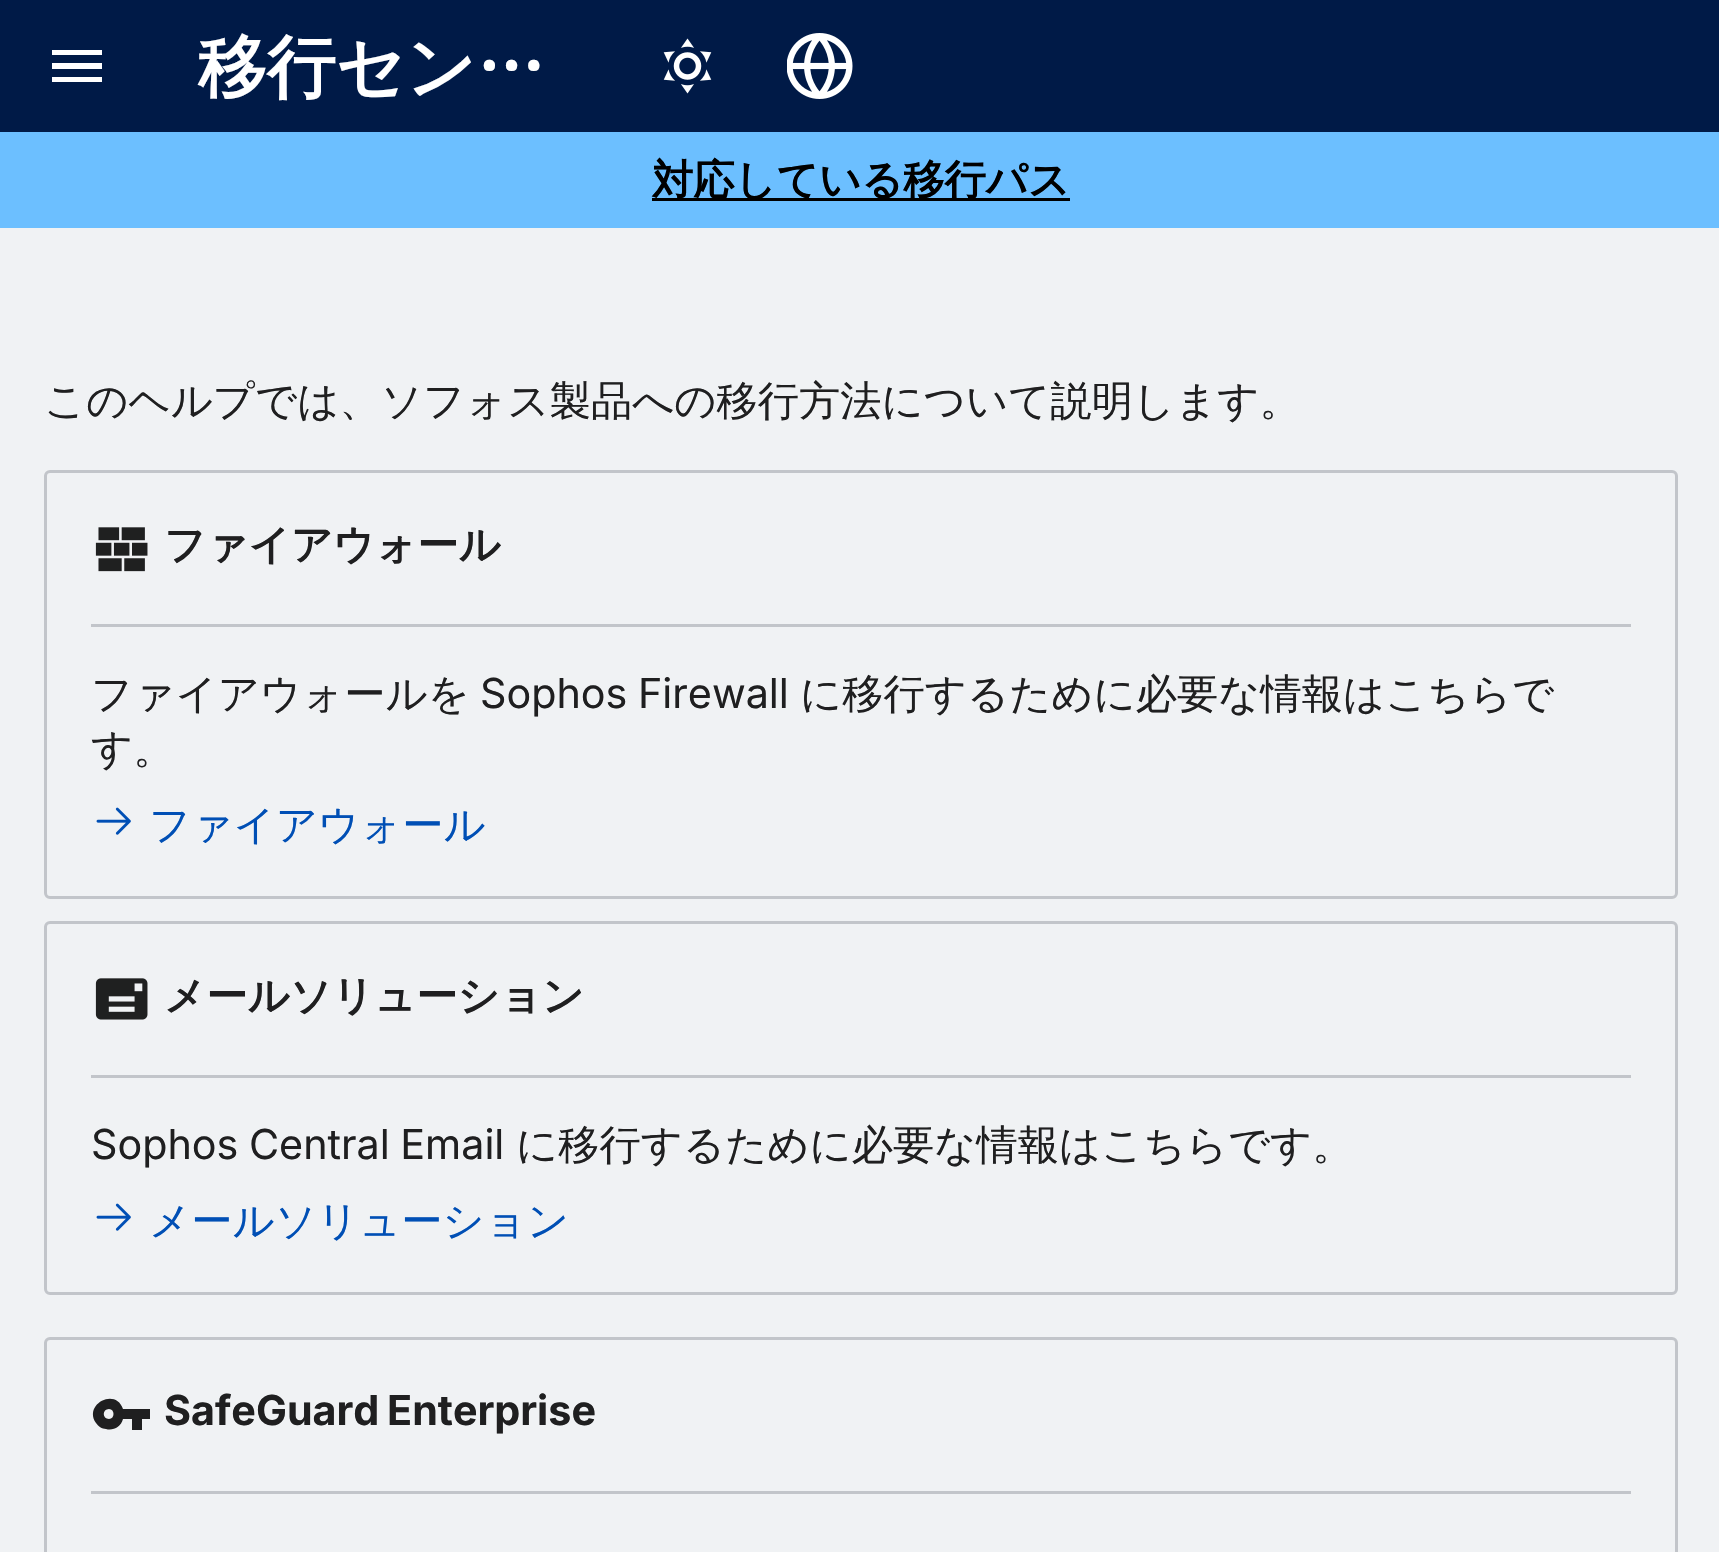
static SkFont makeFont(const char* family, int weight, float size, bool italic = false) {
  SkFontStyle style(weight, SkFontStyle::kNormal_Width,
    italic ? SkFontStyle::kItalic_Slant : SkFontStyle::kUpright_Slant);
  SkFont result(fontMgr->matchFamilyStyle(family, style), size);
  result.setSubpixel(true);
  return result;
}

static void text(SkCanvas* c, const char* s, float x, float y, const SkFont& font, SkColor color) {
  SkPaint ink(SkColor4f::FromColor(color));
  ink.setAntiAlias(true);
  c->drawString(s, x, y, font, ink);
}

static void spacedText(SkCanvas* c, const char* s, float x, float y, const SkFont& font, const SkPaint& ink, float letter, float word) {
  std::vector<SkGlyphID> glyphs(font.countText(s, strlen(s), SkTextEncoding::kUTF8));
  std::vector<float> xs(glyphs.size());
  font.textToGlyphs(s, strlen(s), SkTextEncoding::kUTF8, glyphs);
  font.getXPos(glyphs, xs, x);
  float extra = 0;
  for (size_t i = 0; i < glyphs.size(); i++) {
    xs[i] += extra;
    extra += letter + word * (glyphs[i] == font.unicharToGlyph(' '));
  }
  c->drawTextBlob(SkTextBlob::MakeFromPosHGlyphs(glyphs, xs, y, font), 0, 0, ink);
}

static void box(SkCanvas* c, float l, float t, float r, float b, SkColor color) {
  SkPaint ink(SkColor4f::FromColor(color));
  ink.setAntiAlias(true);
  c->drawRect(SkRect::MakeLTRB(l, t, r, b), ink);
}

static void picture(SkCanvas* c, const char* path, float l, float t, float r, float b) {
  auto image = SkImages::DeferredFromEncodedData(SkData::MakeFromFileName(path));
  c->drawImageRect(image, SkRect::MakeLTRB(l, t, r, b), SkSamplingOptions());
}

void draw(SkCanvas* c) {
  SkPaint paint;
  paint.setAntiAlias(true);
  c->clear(0xfff0f2f4);
  box(c, 0, 0, 1719, 132, 0xff001a47);
  paint.setColor(0xffffffff);
  c->drawPath(SkPathBuilder().moveTo(52, 50).lineTo(102, 50).lineTo(102, 55).lineTo(52, 55).lineTo(52, 50).moveTo(52, 63).lineTo(102, 63).lineTo(102, 69).lineTo(52, 69).lineTo(52, 63).moveTo(52, 77).lineTo(102, 77).lineTo(102, 82).lineTo(52, 82).close().detach(), paint);
  SkFont face1 = makeFont("WenQuanYi Zen Hei", 700, 68.75f);
  text(c, "移行セン…", 198, 91, face1, 0xffffffff);
  picture(c, "img_01.png", 663, 38, 712, 94);
  picture(c, "img_02.png", 787, 33, 853, 99);
  box(c, 0, 132, 1719, 228, 0xff6cbfff);
  box(c, 652, 198, 1070, 201, 0xff000000);
  SkFont face2 = makeFont("WenQuanYi Zen Hei", 700, 41.25f);
  text(c, "対応している移行パス", 652, 194, face2, 0xff000000);
  SkFont face3 = makeFont("WenQuanYi Zen Hei", 500, 41.25f);
  text(c, "このヘルプでは、ソフォス製品への移行方法について説明します。", 44, 415, face3, 0xff1f1f20);
  paint.setStyle(SkPaint::kStroke_Style);
  paint.setStrokeWidth(3);
  paint.setColor(0xffc2c5ca);
  c->drawRoundRect(SkRect::MakeLTRB(45.5f, 471.5f, 1676.5f, 897.5f), 4.5f, 4.5f, paint);
  picture(c, "img_03.png", 95, 527, 148, 572);
  text(c, "ファイアウォール", 164, 559, face2, 0xff1f1f20);
  box(c, 91, 624, 1631, 627, 0xffc2c5ca);
  text(c, "ファイアウォールを", 91, 708, face3, 0xff1f1f20);
  SkFont face4 = makeFont("Inter", 400, 41.25f);
  paint.setStyle(SkPaint::kFill_Style);
  paint.setColor(0xff1f1f20);
  spacedText(c, "Sophos Firewall", 480, 708, face4, paint, 0, -1);
  text(c, "に移行するために必要な情報はこちらで", 800, 708, face3, 0xff1f1f20);
  text(c, "す。", 91, 763, face3, 0xff1f1f20);
  picture(c, "img_04.png", 96, 807, 131, 835);
  text(c, "ファイアウォール", 149, 839, face3, 0xff004fb5);
  paint.setStyle(SkPaint::kStroke_Style);
  paint.setColor(0xffc2c5ca);
  c->drawRoundRect(SkRect::MakeLTRB(45.5f, 922.5f, 1676.5f, 1293.5f), 4.5f, 4.5f, paint);
  picture(c, "img_05.png", 95, 978, 148, 1020);
  text(c, "メールソリューション", 164, 1010, face2, 0xff1f1f20);
  box(c, 91, 1075, 1631, 1078, 0xffc2c5ca);
  paint.setStyle(SkPaint::kFill_Style);
  paint.setColor(0xff1f1f20);
  spacedText(c, "Sophos Central Email", 91, 1159, face4, paint, 0, -1);
  text(c, "に移行するために必要な情報はこちらです。", 516, 1159, face3, 0xff1f1f20);
  picture(c, "img_04.png", 96, 1203, 131, 1231);
  text(c, "メールソリューション", 149, 1235, face3, 0xff004fb5);
  paint.setStyle(SkPaint::kStroke_Style);
  paint.setColor(0xffc2c5ca);
  c->drawRoundRect(SkRect::MakeLTRB(45.5f, 1338.5f, 1676.5f, 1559.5f), 4.5f, 4.5f, paint);
  paint.setStyle(SkPaint::kFill_Style);
  paint.setColor(0xff1f1f20);
  c->drawPath(SkPathBuilder().moveTo(109, 1419).cubicTo(102, 1419, 102, 1409, 109, 1409).cubicTo(115, 1409, 115, 1419, 109, 1419).moveTo(123, 1409).cubicTo(116, 1387, 83, 1404, 96, 1423).cubicTo(98, 1426, 102, 1429, 106, 1429).cubicTo(113, 1431, 121, 1427, 123, 1419).lineTo(132, 1419).lineTo(132, 1430).lineTo(142, 1430).lineTo(142, 1419).lineTo(150, 1419).lineTo(150, 1409).close().detach(), paint);
  SkFont face5 = makeFont("Inter", 700, 41.25f);
  spacedText(c, "SafeGuard Enterprise", 164, 1425, face5, paint, 0, -2);
  box(c, 91, 1491, 1631, 1494, 0xffc2c5ca);
}
